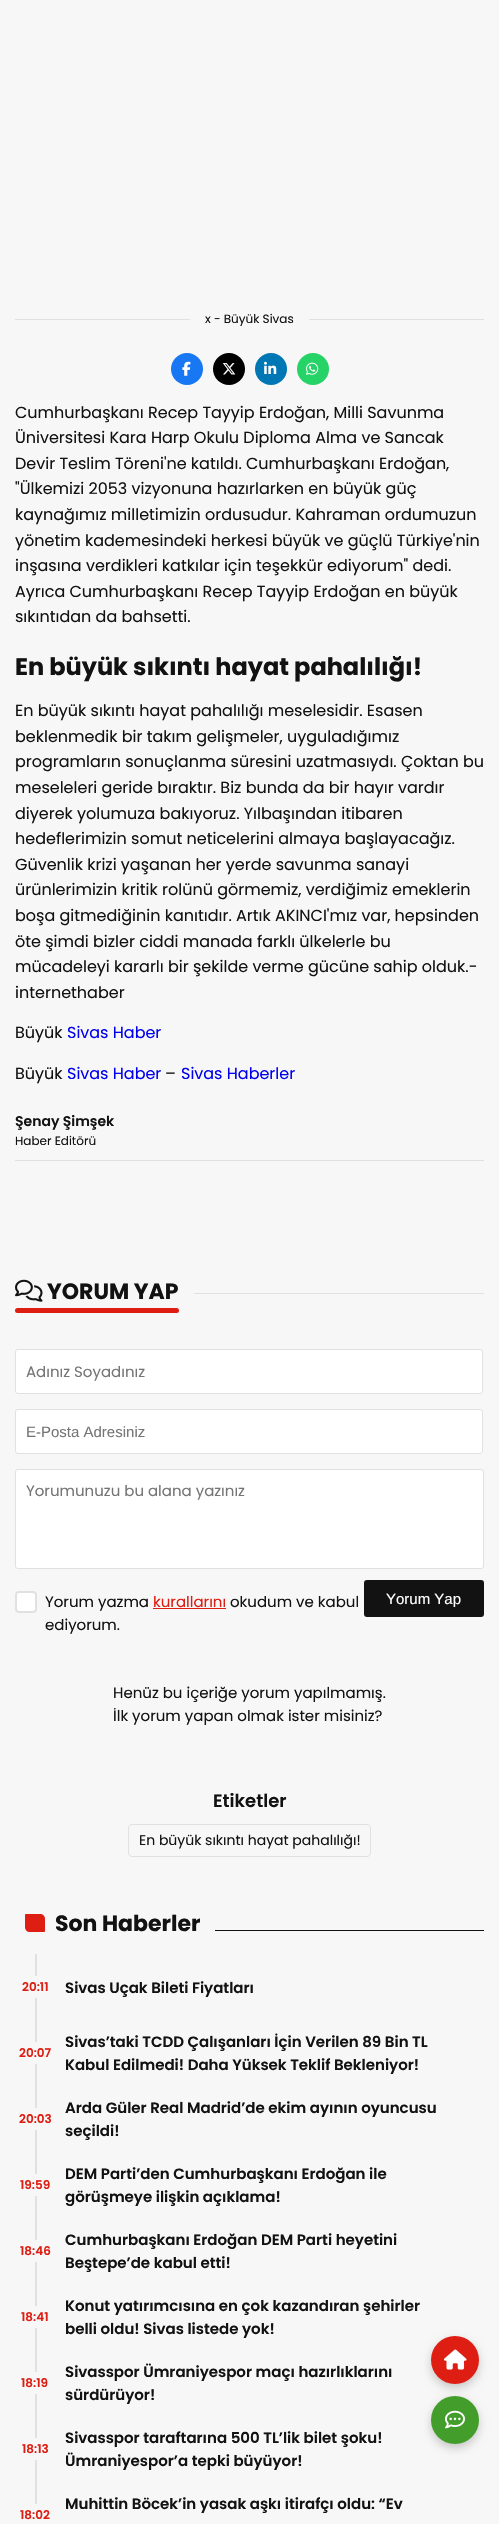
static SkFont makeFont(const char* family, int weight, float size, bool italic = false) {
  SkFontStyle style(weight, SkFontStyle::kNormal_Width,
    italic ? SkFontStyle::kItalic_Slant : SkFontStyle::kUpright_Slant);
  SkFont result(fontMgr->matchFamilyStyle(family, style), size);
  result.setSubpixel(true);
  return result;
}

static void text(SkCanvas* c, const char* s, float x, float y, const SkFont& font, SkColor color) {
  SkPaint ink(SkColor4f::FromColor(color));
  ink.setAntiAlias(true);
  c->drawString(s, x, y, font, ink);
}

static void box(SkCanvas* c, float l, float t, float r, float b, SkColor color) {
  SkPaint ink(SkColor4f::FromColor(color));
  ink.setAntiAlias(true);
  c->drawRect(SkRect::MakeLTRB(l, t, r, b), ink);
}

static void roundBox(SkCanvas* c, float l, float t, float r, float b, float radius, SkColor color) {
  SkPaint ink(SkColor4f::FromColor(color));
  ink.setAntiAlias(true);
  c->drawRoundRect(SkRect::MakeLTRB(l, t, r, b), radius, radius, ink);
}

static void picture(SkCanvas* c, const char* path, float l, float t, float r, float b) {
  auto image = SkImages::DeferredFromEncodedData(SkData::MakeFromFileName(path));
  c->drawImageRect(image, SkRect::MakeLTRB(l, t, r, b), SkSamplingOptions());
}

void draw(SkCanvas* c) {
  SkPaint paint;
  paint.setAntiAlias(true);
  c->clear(0xfff7f7f7);
  box(c, 15, 319, 484, 320, 0xffe1e1e1);
  box(c, 190, 319, 309, 320, 0xfff7f7f7);
  SkFont face1 = makeFont("Poppins", 400, 12);
  text(c, "x - Büyük Sivas", 205, 323, face1, 0xff121212);
  paint.setColor(0xff1877f2);
  c->drawCircle(187, 369, 16, paint);
  picture(c, "img_01.png", 182, 361, 191, 376);
  paint.setColor(0xff000000);
  c->drawCircle(229, 369, 16, paint);
  picture(c, "img_02.png", 222, 363, 236, 375);
  paint.setColor(0xff0077b5);
  c->drawCircle(271, 369, 16, paint);
  picture(c, "img_03.png", 264, 361, 277, 374);
  paint.setColor(0xff25d366);
  c->drawCircle(313, 369, 16, paint);
  picture(c, "img_04.png", 306, 362, 319, 375);
  SkFont face2 = makeFont("Poppins", 400, 16);
  text(c, "Cumhurbaşkanı Recep Tayyip Erdoğan, Milli Savunma", 15, 418, face2, 0xff121212);
  text(c, "Üniversitesi Kara Harp Okulu Diploma Alma ve Sancak", 15, 443, face2, 0xff121212);
  text(c, "Devir Teslim Töreni'ne katıldı. Cumhurbaşkanı Erdoğan,", 15, 469, face2, 0xff121212);
  text(c, "\"Ülkemizi 2053 vizyonuna hazırlarken en büyük güç", 15, 494, face2, 0xff121212);
  text(c, "kaynağımız milletimizin ordusudur. Kahraman ordumuzun", 15, 520, face2, 0xff121212);
  text(c, "yönetim kademesindeki herkesi büyük ve güçlü Türkiye'nin", 15, 546, face2, 0xff121212);
  text(c, "inşasına verdikleri katkılar için teşekkür ediyorum\" dedi.", 15, 571, face2, 0xff121212);
  text(c, "Ayrıca Cumhurbaşkanı Recep Tayyip Erdoğan en büyük", 15, 597, face2, 0xff121212);
  text(c, "sıkıntıdan da bahsetti.", 15, 622, face2, 0xff121212);
  SkFont face3 = makeFont("Poppins", 700, 24);
  text(c, "En büyük sıkıntı hayat pahalılığı!", 15, 675, face3, 0xff121212);
  text(c, "En büyük sıkıntı hayat pahalılığı meselesidir. Esasen", 15, 716, face2, 0xff121212);
  text(c, "beklenmedik bir takım gelişmeler, uyguladığımız", 15, 742, face2, 0xff121212);
  text(c, "programların sonuçlanma süresini uzatmasıydı. Çoktan bu", 15, 767, face2, 0xff121212);
  text(c, "meseleleri geride bıraktır. Biz bunda da bir hayır vardır", 15, 793, face2, 0xff121212);
  text(c, "diyerek yolumuza bakıyoruz. Yılbaşından itibaren", 15, 819, face2, 0xff121212);
  text(c, "hedeflerimizin somut neticelerini almaya başlayacağız.", 15, 844, face2, 0xff121212);
  text(c, "Güvenlik krizi yaşanan her yerde savunma sanayi", 15, 870, face2, 0xff121212);
  text(c, "ürünlerimizin kritik rolünü görmemiz, verdiğimiz emeklerin", 15, 895, face2, 0xff121212);
  text(c, "boşa gitmediğinin kanıtıdır. Artık AKINCI'mız var, hepsinden", 15, 921, face2, 0xff121212);
  text(c, "öte şimdi bizler ciddi manada farklı ülkelerle bu", 15, 947, face2, 0xff121212);
  text(c, "mücadeleyi kararlı bir şekilde verme gücüne sahip olduk.-", 15, 972, face2, 0xff121212);
  text(c, "internethaber", 15, 998, face2, 0xff121212);
  text(c, "Büyük", 15, 1038, face2, 0xff121212);
  text(c, "Sivas Haber", 67, 1038, face2, 0xff0000ee);
  text(c, "Büyük", 15, 1079, face2, 0xff121212);
  text(c, "Sivas Haber", 67, 1079, face2, 0xff0000ee);
  text(c, "–", 165, 1079, face2, 0xff121212);
  text(c, "Sivas Haberler", 181, 1079, face2, 0xff0000ee);
  box(c, 15, 1160, 484, 1161, 0xffe1e1e1);
  SkFont face4 = makeFont("Poppins", 600, 14);
  text(c, "Şenay Şimşek", 15, 1126, face4, 0xff121212);
  text(c, "Haber Editörü", 15, 1145, face1, 0xff121212);
  picture(c, "img_05.png", 15, 1279, 43, 1302);
  SkFont face5 = makeFont("Poppins", 700, 22);
  text(c, "YORUM YAP", 47, 1299, face5, 0xff121212);
  roundBox(c, 15, 1308, 179, 1313, 2.5f, 0xffde1e12);
  box(c, 194, 1293, 484, 1294, 0xffe1e1e1);
  paint.setColor(0xffffffff);
  c->drawRoundRect(SkRect::MakeLTRB(15.5f, 1349.5f, 482.5f, 1393.5f), 2.5f, 2.5f, paint);
  paint.setStyle(SkPaint::kStroke_Style);
  paint.setStrokeWidth(1);
  paint.setColor(0xffe1e1e1);
  c->drawRoundRect(SkRect::MakeLTRB(15.5f, 1349.5f, 482.5f, 1393.5f), 2.5f, 2.5f, paint);
  SkFont face6 = makeFont("Poppins", 400, 15);
  text(c, "Adınız Soyadınız", 26, 1377, face6, 0xff757575);
  paint.setStyle(SkPaint::kFill_Style);
  paint.setColor(0xffffffff);
  c->drawRoundRect(SkRect::MakeLTRB(15.5f, 1409.5f, 482.5f, 1453.5f), 2.5f, 2.5f, paint);
  paint.setStyle(SkPaint::kStroke_Style);
  paint.setColor(0xffe1e1e1);
  c->drawRoundRect(SkRect::MakeLTRB(15.5f, 1409.5f, 482.5f, 1453.5f), 2.5f, 2.5f, paint);
  SkFont face7 = makeFont("Liberation Sans", 400, 15);
  text(c, "E-Posta Adresiniz", 26, 1437, face7, 0xff757575);
  paint.setStyle(SkPaint::kFill_Style);
  paint.setColor(0xffffffff);
  c->drawRoundRect(SkRect::MakeLTRB(15.5f, 1469.5f, 483.5f, 1568.5f), 2.5f, 2.5f, paint);
  paint.setStyle(SkPaint::kStroke_Style);
  paint.setColor(0xffe1e1e1);
  c->drawRoundRect(SkRect::MakeLTRB(15.5f, 1469.5f, 483.5f, 1568.5f), 2.5f, 2.5f, paint);
  text(c, "Yorumunuzu bu alana yazınız", 26, 1496, face6, 0xff757575);
  paint.setStyle(SkPaint::kFill_Style);
  paint.setColor(0xffffffff);
  c->drawRoundRect(SkRect::MakeLTRB(16, 1592, 36, 1612), 3, 3, paint);
  paint.setStyle(SkPaint::kStroke_Style);
  paint.setStrokeWidth(2);
  paint.setColor(0xffe1e1e1);
  c->drawRoundRect(SkRect::MakeLTRB(16, 1592, 36, 1612), 3, 3, paint);
  text(c, "Yorum yazma", 45, 1607, face6, 0xff121212);
  text(c, "kurallarını", 153, 1607, face6, 0xffde1e12);
  box(c, 153, 1608, 226, 1609, 0xffde1e12);
  text(c, "okudum ve kabul", 230, 1607, face6, 0xff121212);
  text(c, "ediyorum.", 45, 1630, face6, 0xff121212);
  roundBox(c, 364, 1580, 484, 1617, 3, 0xff121212);
  text(c, "Yorum Yap", 386, 1604, face7, 0xffffffff);
  text(c, "Henüz bu içeriğe yorum yapılmamış.", 113, 1698, face6, 0xff121212);
  text(c, "İlk yorum yapan olmak ister misiniz?", 113, 1721, face6, 0xff121212);
  SkFont face8 = makeFont("Poppins", 600, 18);
  text(c, "Etiketler", 213, 1807, face8, 0xff121212);
  paint.setStrokeWidth(1);
  c->drawRoundRect(SkRect::MakeLTRB(128.5f, 1824.5f, 370.5f, 1856.5f), 3.5f, 3.5f, paint);
  SkFont face9 = makeFont("Poppins", 400, 14);
  text(c, "En büyük sıkıntı hayat pahalılığı!", 139, 1845, face9, 0xff121212);
  paint.setStyle(SkPaint::kFill_Style);
  paint.setColor(0xffde1e12);
  c->drawPath(SkPathBuilder().moveTo(26, 1914).lineTo(40, 1914).cubicTo(43, 1914, 45, 1916, 45, 1919).lineTo(45, 1931).cubicTo(45, 1931.5f, 44.5f, 1932, 44, 1932).lineTo(30, 1932).cubicTo(27, 1932, 25, 1930, 25, 1927).lineTo(25, 1915).cubicTo(25, 1914.5f, 25.5f, 1914, 26, 1914).close().detach(), paint);
  text(c, "Son Haberler", 55, 1931, face5, 0xff121212);
  box(c, 215, 1930, 484, 1931, 0xff121212);
  box(c, 35, 1954, 37, 2504, 0xffe1e1e1);
  SkFont face10 = makeFont("Poppins", 600, 15);
  text(c, "Sivas Uçak Bileti Fiyatları", 65, 1993, face10, 0xff121212);
  box(c, 35, 1976, 37, 1998, 0xfff7f7f7);
  SkFont face11 = makeFont("Poppins", 600, 12);
  text(c, "20:11", 22, 1991, face11, 0xffde1e12);
  box(c, 35, 2042, 37, 2064, 0xfff7f7f7);
  text(c, "20:07", 19, 2057, face11, 0xffde1e12);
  text(c, "Sivas’taki TCDD Çalışanları İçin Verilen 89 Bin TL", 65, 2047, face10, 0xff121212);
  text(c, "Kabul Edilmedi! Daha Yüksek Teklif Bekleniyor!", 65, 2070, face10, 0xff121212);
  box(c, 35, 2108, 37, 2130, 0xfff7f7f7);
  text(c, "20:03", 19, 2123, face11, 0xffde1e12);
  text(c, "Arda Güler Real Madrid’de ekim ayının oyuncusu", 65, 2113, face10, 0xff121212);
  text(c, "seçildi!", 65, 2136, face10, 0xff121212);
  box(c, 35, 2174, 37, 2196, 0xfff7f7f7);
  text(c, "19:59", 20, 2189, face11, 0xffde1e12);
  text(c, "DEM Parti’den Cumhurbaşkanı Erdoğan ile", 65, 2179, face10, 0xff121212);
  text(c, "görüşmeye ilişkin açıklama!", 65, 2202, face10, 0xff121212);
  box(c, 35, 2240, 37, 2262, 0xfff7f7f7);
  text(c, "18:46", 20, 2255, face11, 0xffde1e12);
  text(c, "Cumhurbaşkanı Erdoğan DEM Parti heyetini", 65, 2245, face10, 0xff121212);
  text(c, "Beştepe’de kabul etti!", 65, 2268, face10, 0xff121212);
  box(c, 35, 2306, 37, 2328, 0xfff7f7f7);
  text(c, "18:41", 21, 2321, face11, 0xffde1e12);
  text(c, "Konut yatırımcısına en çok kazandıran şehirler", 65, 2311, face10, 0xff121212);
  text(c, "belli oldu! Sivas listede yok!", 65, 2334, face10, 0xff121212);
  box(c, 35, 2372, 37, 2394, 0xfff7f7f7);
  text(c, "18:19", 21, 2387, face11, 0xffde1e12);
  text(c, "Sivasspor Ümraniyespor maçı hazırlıklarını", 65, 2377, face10, 0xff121212);
  text(c, "sürdürüyor!", 65, 2400, face10, 0xff121212);
  box(c, 35, 2438, 37, 2460, 0xfff7f7f7);
  text(c, "18:13", 22, 2453, face11, 0xffde1e12);
  text(c, "Sivasspor taraftarına 500 TL’lik bilet şoku!", 65, 2443, face10, 0xff121212);
  text(c, "Ümraniyespor’a tepki büyüyor!", 65, 2466, face10, 0xff121212);
  text(c, "Muhittin Böcek’in yasak aşkı itirafçı oldu: “Ev", 65, 2509, face10, 0xff121212);
  text(c, "18:02", 20, 2519, face11, 0xffde1e12);
  paint.setColor(0x33000000);
  paint.setMaskFilter(SkMaskFilter::MakeBlur(kNormal_SkBlurStyle, 5));
  c->drawRoundRect(SkRect::MakeLTRB(431, 2340, 479, 2388), 24, 24, paint);
  paint.setMaskFilter(nullptr);
  paint.setColor(0xffde1e12);
  c->drawCircle(455, 2360, 24, paint);
  picture(c, "img_06.png", 444, 2349, 467, 2370);
  paint.setColor(0x33000000);
  paint.setMaskFilter(SkMaskFilter::MakeBlur(kNormal_SkBlurStyle, 5));
  c->drawRoundRect(SkRect::MakeLTRB(431, 2400, 479, 2448), 24, 24, paint);
  paint.setMaskFilter(nullptr);
  paint.setColor(0xff439d2b);
  c->drawCircle(455, 2420, 24, paint);
  picture(c, "img_07.png", 445, 2410, 465, 2429);
}
